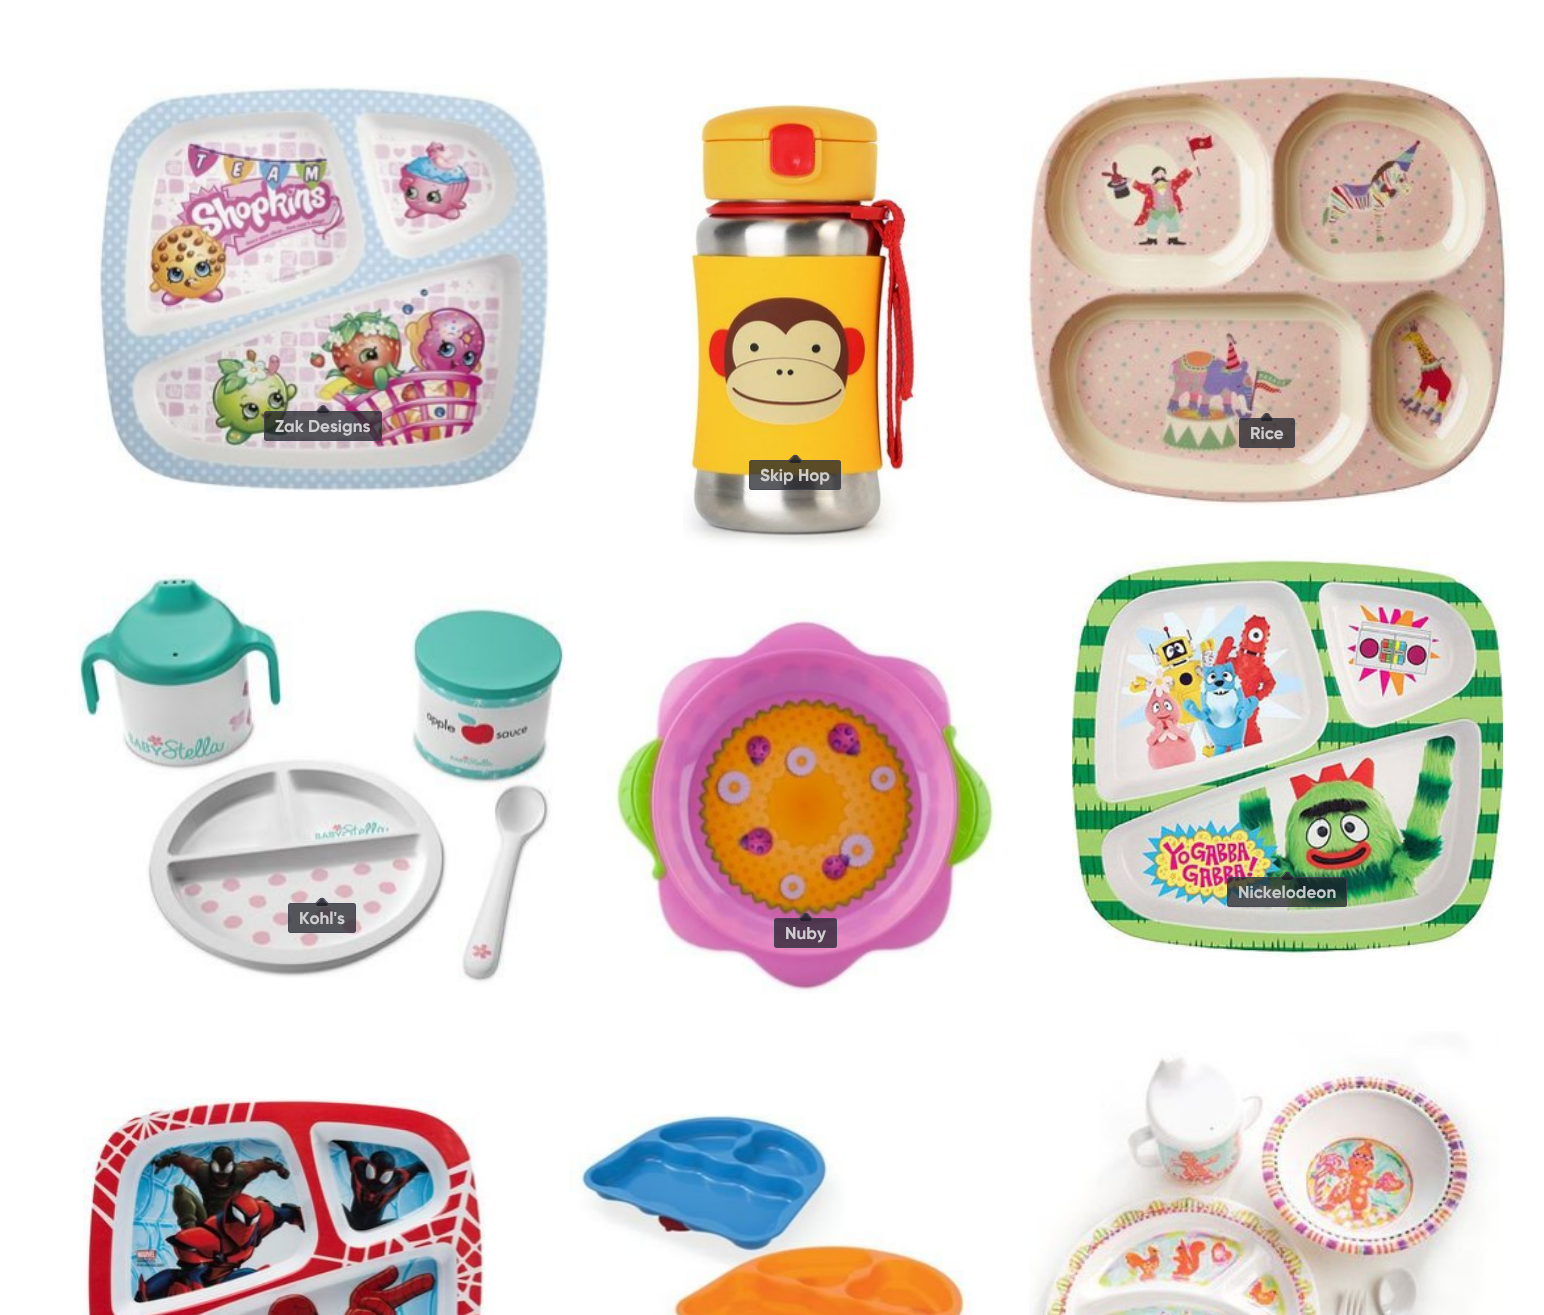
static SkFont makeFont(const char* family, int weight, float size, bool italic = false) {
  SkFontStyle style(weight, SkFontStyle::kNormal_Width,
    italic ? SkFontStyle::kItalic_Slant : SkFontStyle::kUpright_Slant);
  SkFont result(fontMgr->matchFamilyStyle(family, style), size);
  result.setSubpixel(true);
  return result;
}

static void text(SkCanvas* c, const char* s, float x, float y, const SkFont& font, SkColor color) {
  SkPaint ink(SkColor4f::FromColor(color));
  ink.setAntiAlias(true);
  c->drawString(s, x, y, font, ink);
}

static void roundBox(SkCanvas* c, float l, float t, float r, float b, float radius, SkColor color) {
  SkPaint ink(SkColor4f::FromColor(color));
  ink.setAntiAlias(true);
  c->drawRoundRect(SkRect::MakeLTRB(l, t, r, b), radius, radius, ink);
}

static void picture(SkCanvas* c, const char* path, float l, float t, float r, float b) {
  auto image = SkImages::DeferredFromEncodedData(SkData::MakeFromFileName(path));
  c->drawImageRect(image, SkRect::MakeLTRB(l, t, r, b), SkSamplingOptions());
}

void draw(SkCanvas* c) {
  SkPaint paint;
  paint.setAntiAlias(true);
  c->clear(0xffffffff);
  picture(c, "img_01.png", 95, 84, 551, 493);
  picture(c, "img_02.png", 683, 104, 917, 547);
  picture(c, "img_03.png", 1023, 69, 1510, 506);
  picture(c, "img_04.png", 78, 573, 565, 986);
  picture(c, "img_05.png", 607, 608, 998, 994);
  picture(c, "img_06.png", 1072, 551, 1503, 958);
  picture(c, "img_07.png", 83, 1098, 486, 1315);
  picture(c, "img_08.png", 569, 1114, 972, 1315);
  picture(c, "img_09.png", 1029, 1031, 1499, 1315);
  roundBox(c, 264, 411, 382, 441, 3, 0xb81c1d26);
  paint.setStyle(SkPaint::kStroke_Style);
  paint.setStrokeWidth(1);
  paint.setColor(0xb8454757);
  c->drawRoundRect(SkRect::MakeLTRB(264.5f, 411.5f, 381.5f, 440.5f), 2.5f, 2.5f, paint);
  picture(c, "img_10.png", 317, 405, 330, 413);
  paint.setStyle(SkPaint::kFill_Style);
  paint.setColor(0xd9454757);
  c->drawPath(SkPathBuilder(SkPathFillType::kEvenOdd).moveTo(325, 406).lineTo(330, 411).lineTo(323, 418).lineTo(316, 411).cubicTo(318, 409, 322, 403, 325, 406).close().moveTo(324.5f, 407).lineTo(329.5f, 412).lineTo(323, 418).lineTo(316.5f, 412).lineTo(321.5f, 407).cubicTo(322.5f, 406, 323.5f, 406, 324.5f, 407).close().detach(), paint);
  SkFont face1 = makeFont("Gilroy", 700, 17);
  text(c, "Zak Designs", 275, 432, face1, 0xffcecdcf);
  roundBox(c, 1239, 418, 1295, 448, 3, 0xb81c1d26);
  paint.setStyle(SkPaint::kStroke_Style);
  paint.setColor(0xb8454757);
  c->drawRoundRect(SkRect::MakeLTRB(1239.5f, 418.5f, 1294.5f, 447.5f), 2.5f, 2.5f, paint);
  picture(c, "img_11.png", 1260, 413, 1273, 421);
  paint.setStyle(SkPaint::kFill_Style);
  paint.setColor(0xd9454757);
  c->drawPath(SkPathBuilder(SkPathFillType::kEvenOdd).moveTo(1269, 414).lineTo(1273.5f, 419).lineTo(1266.5f, 426).lineTo(1259.5f, 419).cubicTo(1261.5f, 417, 1265.5f, 410.5f, 1269, 414).close().moveTo(1268, 414.5f).lineTo(1273, 419.5f).lineTo(1266.5f, 426).lineTo(1260.5f, 419.5f).lineTo(1265.5f, 414.5f).cubicTo(1266, 413.5f, 1267.5f, 413.5f, 1268, 414.5f).close().detach(), paint);
  text(c, "Rice", 1250, 439, face1, 0xffcecdcf);
  roundBox(c, 749, 460, 841, 490, 3, 0xb81c1d26);
  paint.setStyle(SkPaint::kStroke_Style);
  paint.setColor(0xb8454757);
  c->drawRoundRect(SkRect::MakeLTRB(749.5f, 460.5f, 840.5f, 489.5f), 2.5f, 2.5f, paint);
  picture(c, "img_12.png", 789, 454, 802, 463);
  paint.setStyle(SkPaint::kFill_Style);
  paint.setColor(0xd9454757);
  c->drawPath(SkPathBuilder(SkPathFillType::kEvenOdd).moveTo(797.5f, 455.5f).lineTo(802.5f, 460.5f).lineTo(795.5f, 467.5f).lineTo(788, 460.5f).cubicTo(790, 458.5f, 794.5f, 452.5f, 797.5f, 455.5f).close().moveTo(796.5f, 456.5f).lineTo(801.5f, 461.5f).lineTo(795.5f, 467.5f).lineTo(789, 461.5f).lineTo(794, 456.5f).cubicTo(794.5f, 455.5f, 796, 455.5f, 796.5f, 456.5f).close().detach(), paint);
  text(c, "Skip Hop", 760, 481, face1, 0xffcfcdc9);
  roundBox(c, 1227, 877, 1347, 907, 3, 0xb81c1d26);
  paint.setStyle(SkPaint::kStroke_Style);
  paint.setColor(0xb8454757);
  c->drawRoundRect(SkRect::MakeLTRB(1227.5f, 877.5f, 1346.5f, 906.5f), 2.5f, 2.5f, paint);
  picture(c, "img_13.png", 1281, 871, 1294, 880);
  paint.setStyle(SkPaint::kFill_Style);
  paint.setColor(0xd9454757);
  c->drawPath(SkPathBuilder(SkPathFillType::kEvenOdd).moveTo(1289.5f, 872.5f).lineTo(1294.5f, 877.5f).lineTo(1287.5f, 884.5f).lineTo(1280, 877.5f).cubicTo(1282, 875.5f, 1286.5f, 869.5f, 1289.5f, 872.5f).close().moveTo(1288.5f, 873).lineTo(1293.5f, 878).lineTo(1287.5f, 884.5f).lineTo(1281, 878).lineTo(1286, 873).cubicTo(1286.5f, 872.5f, 1288, 872.5f, 1288.5f, 873).close().detach(), paint);
  text(c, "Nickelodeon", 1238, 898, face1, 0xffc6cbca);
  roundBox(c, 288, 903, 356, 933, 3, 0xb81c1d26);
  paint.setStyle(SkPaint::kStroke_Style);
  paint.setColor(0xb8454757);
  c->drawRoundRect(SkRect::MakeLTRB(288.5f, 903.5f, 355.5f, 932.5f), 2.5f, 2.5f, paint);
  picture(c, "img_14.png", 316, 897, 328, 906);
  paint.setStyle(SkPaint::kFill_Style);
  paint.setColor(0xd9454757);
  c->drawPath(SkPathBuilder(SkPathFillType::kEvenOdd).moveTo(324, 898.5f).lineTo(329, 903.5f).lineTo(322, 910.5f).lineTo(315, 903.5f).cubicTo(317, 901.5f, 321, 895.5f, 324, 898.5f).close().moveTo(323.5f, 899.5f).lineTo(328.5f, 904.5f).lineTo(322, 910.5f).lineTo(315.5f, 904.5f).lineTo(320.5f, 899.5f).cubicTo(321.5f, 898.5f, 322.5f, 898.5f, 323.5f, 899.5f).close().detach(), paint);
  text(c, "Kohl's", 299, 924, face1, 0xffcecdcf);
  roundBox(c, 774, 918, 837, 948, 3, 0xb81c1d26);
  paint.setStyle(SkPaint::kStroke_Style);
  paint.setColor(0xb8454757);
  c->drawRoundRect(SkRect::MakeLTRB(774.5f, 918.5f, 836.5f, 947.5f), 2.5f, 2.5f, paint);
  picture(c, "img_15.png", 799, 912, 812, 921);
  paint.setStyle(SkPaint::kFill_Style);
  paint.setColor(0xd9454757);
  c->drawPath(SkPathBuilder(SkPathFillType::kEvenOdd).moveTo(808, 913.5f).lineTo(813, 918.5f).lineTo(805.5f, 925.5f).lineTo(798.5f, 918.5f).cubicTo(800.5f, 916.5f, 805, 910.5f, 808, 913.5f).close().moveTo(807, 914.5f).lineTo(812, 919.5f).lineTo(805.5f, 925.5f).lineTo(799.5f, 919.5f).lineTo(804.5f, 914.5f).cubicTo(805, 913.5f, 806.5f, 913.5f, 807, 914.5f).close().detach(), paint);
  text(c, "Nuby", 785, 939, face1, 0xffcecdcf);
}
